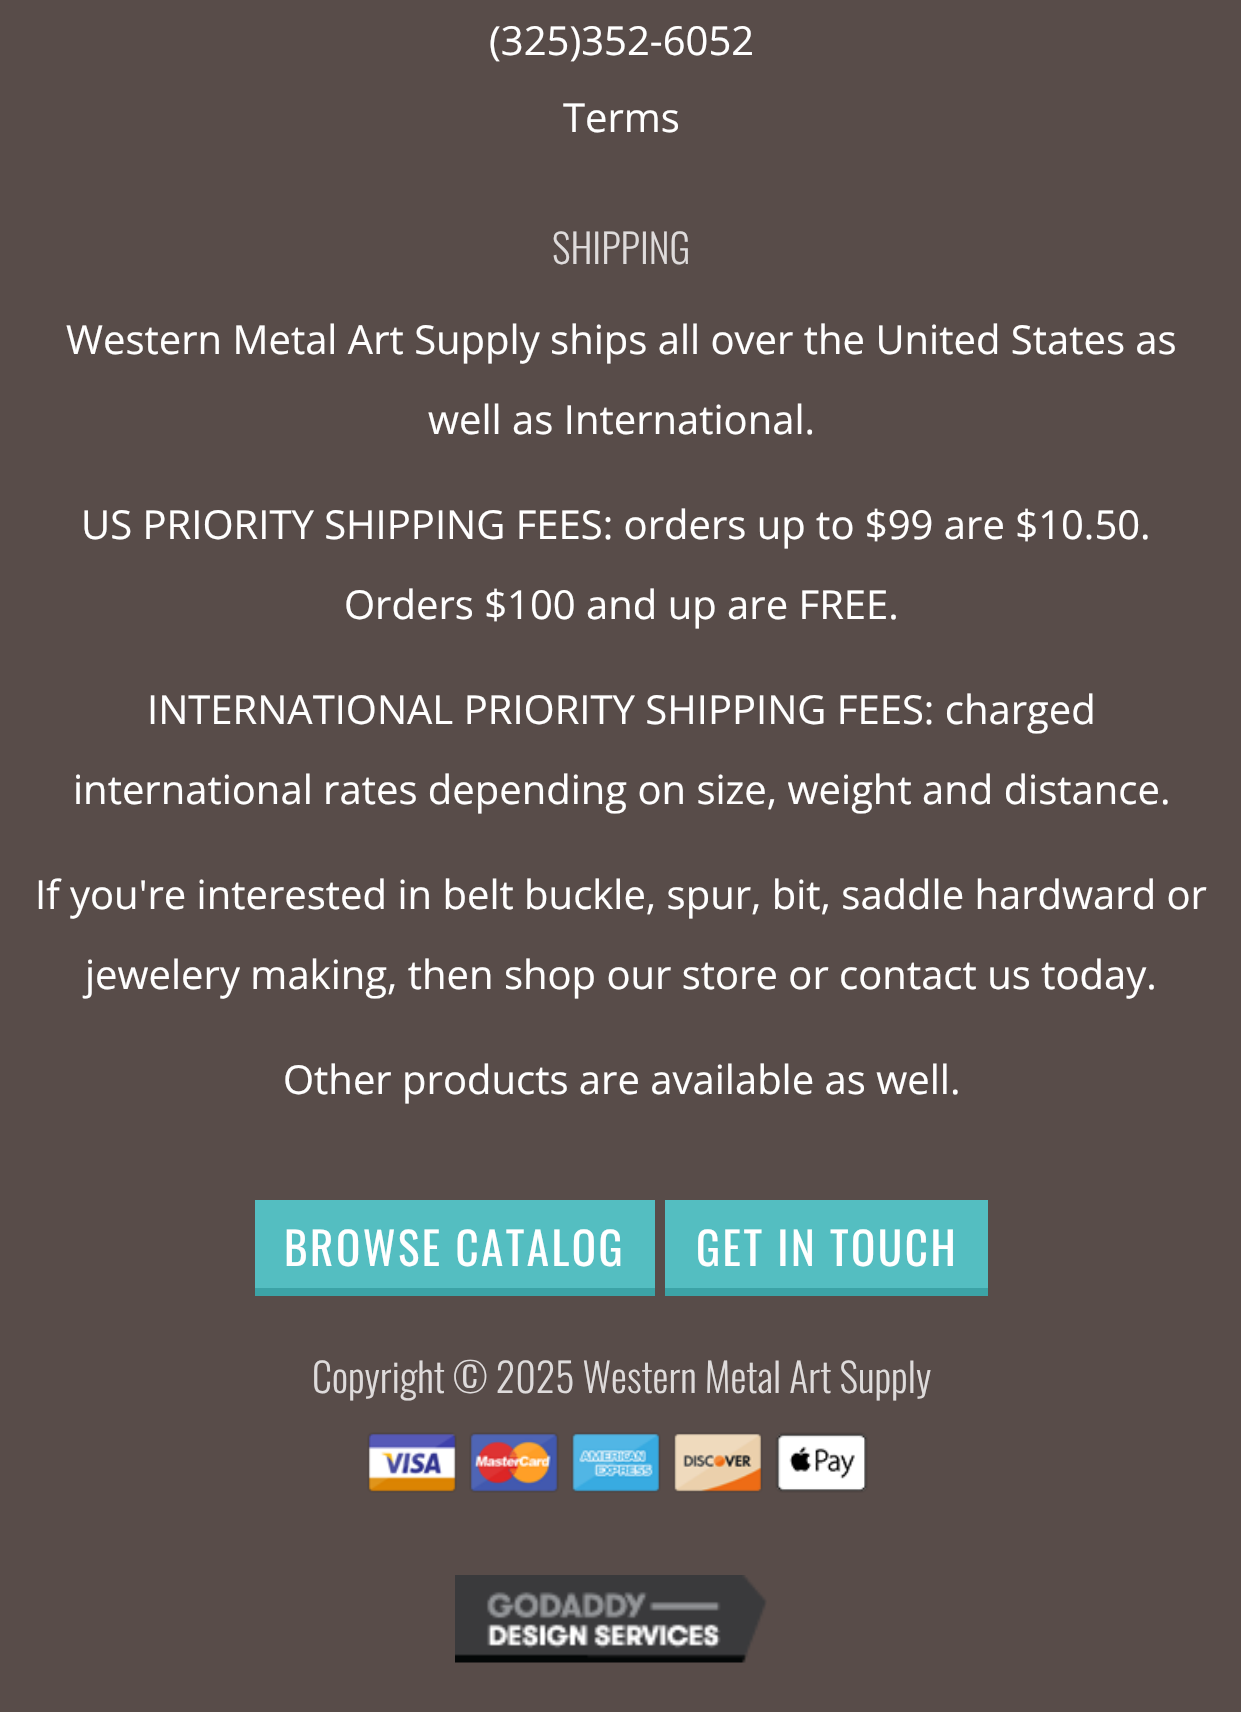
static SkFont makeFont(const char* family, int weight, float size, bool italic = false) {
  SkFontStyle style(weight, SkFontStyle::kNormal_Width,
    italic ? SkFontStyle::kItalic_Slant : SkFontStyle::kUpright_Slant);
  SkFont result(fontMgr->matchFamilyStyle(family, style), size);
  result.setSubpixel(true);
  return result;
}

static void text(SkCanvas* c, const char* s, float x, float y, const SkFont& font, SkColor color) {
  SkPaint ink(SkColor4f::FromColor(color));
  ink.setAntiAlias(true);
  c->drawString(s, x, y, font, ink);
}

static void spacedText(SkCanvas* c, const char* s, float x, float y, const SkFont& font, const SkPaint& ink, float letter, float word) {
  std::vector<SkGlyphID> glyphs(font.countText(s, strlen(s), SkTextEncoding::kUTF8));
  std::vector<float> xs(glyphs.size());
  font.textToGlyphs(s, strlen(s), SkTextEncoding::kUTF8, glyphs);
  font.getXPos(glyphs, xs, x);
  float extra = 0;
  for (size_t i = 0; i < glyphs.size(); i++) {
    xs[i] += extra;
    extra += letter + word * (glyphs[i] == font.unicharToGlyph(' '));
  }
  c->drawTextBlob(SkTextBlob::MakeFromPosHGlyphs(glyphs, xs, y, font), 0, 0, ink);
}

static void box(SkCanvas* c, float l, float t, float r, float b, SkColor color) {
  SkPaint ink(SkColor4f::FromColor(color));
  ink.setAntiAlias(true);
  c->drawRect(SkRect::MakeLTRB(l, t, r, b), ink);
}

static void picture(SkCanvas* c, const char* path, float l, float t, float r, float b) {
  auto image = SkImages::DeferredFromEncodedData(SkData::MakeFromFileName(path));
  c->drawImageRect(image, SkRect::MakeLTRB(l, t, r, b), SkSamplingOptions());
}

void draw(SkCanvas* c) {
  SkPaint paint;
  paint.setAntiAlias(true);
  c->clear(0xff584c49);
  SkFont face1 = makeFont("Open Sans", 400, 40);
  text(c, "(325)352-6052", 489, 55, face1, 0xffffffff);
  text(c, "Terms", 563, 132, face1, 0xffffffff);
  SkFont face2 = makeFont("Oswald", 300, 40);
  text(c, "SHIPPING", 552, 264, face2, 0xffdedbdb);
  text(c, "Western Metal Art Supply ships all over the United States as", 66, 354, face1, 0xffffffff);
  text(c, "well as International.", 428, 434, face1, 0xffffffff);
  text(c, "US PRIORITY SHIPPING FEES: orders up to $99 are $10.50.", 81, 539, face1, 0xffffffff);
  text(c, "Orders $100 and up are FREE.", 344, 619, face1, 0xffffffff);
  text(c, "INTERNATIONAL PRIORITY SHIPPING FEES: charged", 147, 724, face1, 0xffffffff);
  text(c, "international rates depending on size, weight and distance.", 73, 804, face1, 0xffffffff);
  text(c, "If you're interested in belt buckle, spur, bit, saddle hardward or", 35, 909, face1, 0xffffffff);
  text(c, "jewelery making, then shop our store or contact us today.", 85, 989, face1, 0xffffffff);
  text(c, "Other products are available as well.", 283, 1094, face1, 0xffffffff);
  box(c, 255, 1200, 655, 1288, 0xff54bec1);
  box(c, 255, 1288, 655, 1296, 0xff3ca3a6);
  SkFont face3 = makeFont("Oswald", 400, 45);
  paint.setColor(0xffffffff);
  spacedText(c, "BROWSE CATALOG", 284, 1266, face3, paint, 2.5f, 0);
  box(c, 665, 1200, 988, 1288, 0xff54bec1);
  box(c, 665, 1288, 988, 1296, 0xff3ca3a6);
  spacedText(c, "GET IN TOUCH", 696, 1266, face3, paint, 2.5f, 0);
  text(c, "Copyright © 2025 Western Metal Art Supply", 312, 1393, face2, 0xffdedbdb);
  picture(c, "img_01.png", 367, 1432, 868, 1493);
  picture(c, "img_02.png", 455, 1575, 767, 1663);
}
